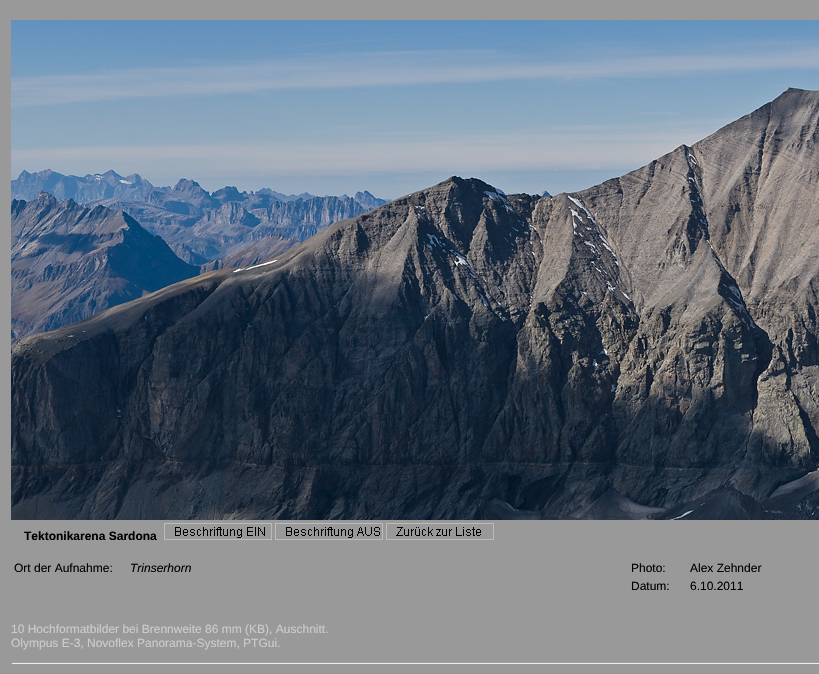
static SkFont makeFont(const char* family, int weight, float size, bool italic = false) {
  SkFontStyle style(weight, SkFontStyle::kNormal_Width,
    italic ? SkFontStyle::kItalic_Slant : SkFontStyle::kUpright_Slant);
  SkFont result(fontMgr->matchFamilyStyle(family, style), size);
  result.setSubpixel(true);
  return result;
}

static void text(SkCanvas* c, const char* s, float x, float y, const SkFont& font, SkColor color) {
  SkPaint ink(SkColor4f::FromColor(color));
  ink.setAntiAlias(true);
  c->drawString(s, x, y, font, ink);
}

static void box(SkCanvas* c, float l, float t, float r, float b, SkColor color) {
  SkPaint ink(SkColor4f::FromColor(color));
  ink.setAntiAlias(true);
  c->drawRect(SkRect::MakeLTRB(l, t, r, b), ink);
}

static void picture(SkCanvas* c, const char* path, float l, float t, float r, float b) {
  auto image = SkImages::DeferredFromEncodedData(SkData::MakeFromFileName(path));
  c->drawImageRect(image, SkRect::MakeLTRB(l, t, r, b), SkSamplingOptions());
}

void draw(SkCanvas* c) {
  SkPaint paint;
  paint.setAntiAlias(true);
  c->clear(0xff999999);
  picture(c, "img_01.png", 11, 20, 819, 520);
  SkFont face1 = makeFont("Liberation Sans", 700, 12);
  text(c, "Tektonikarena Sardona", 24, 540, face1, 0xff000000);
  picture(c, "img_02.png", 164, 523, 272, 540);
  picture(c, "img_03.png", 275, 523, 383, 540);
  picture(c, "img_04.png", 386, 523, 494, 540);
  SkFont face2 = makeFont("Liberation Sans", 400, 12);
  text(c, "Ort der Aufnahme:", 14, 572, face2, 0xff000000);
  SkFont face3 = makeFont("Liberation Sans", 400, 12, true);
  text(c, "Trinserhorn", 130, 572, face3, 0xff000000);
  text(c, "Photo:", 631, 572, face2, 0xff000000);
  text(c, "Alex Zehnder", 690, 572, face2, 0xff000000);
  text(c, "Datum:", 631, 590, face2, 0xff000000);
  text(c, "6.10.2011", 690, 590, face2, 0xff000000);
  text(c, "10 Hochformatbilder bei Brennweite 86 mm (KB), Auschnitt.", 11, 633, face2, 0xffcccccc);
  text(c, "Olympus E-3, Novoflex Panorama-System, PTGui.", 11, 647, face2, 0xffcccccc);
  box(c, 11, 662, 819, 663, 0xff9f9f9f);
  box(c, 11, 663, 819, 664, 0xffeeeeee);
  box(c, 11, 662, 12, 664, 0xff9f9f9f);
}
